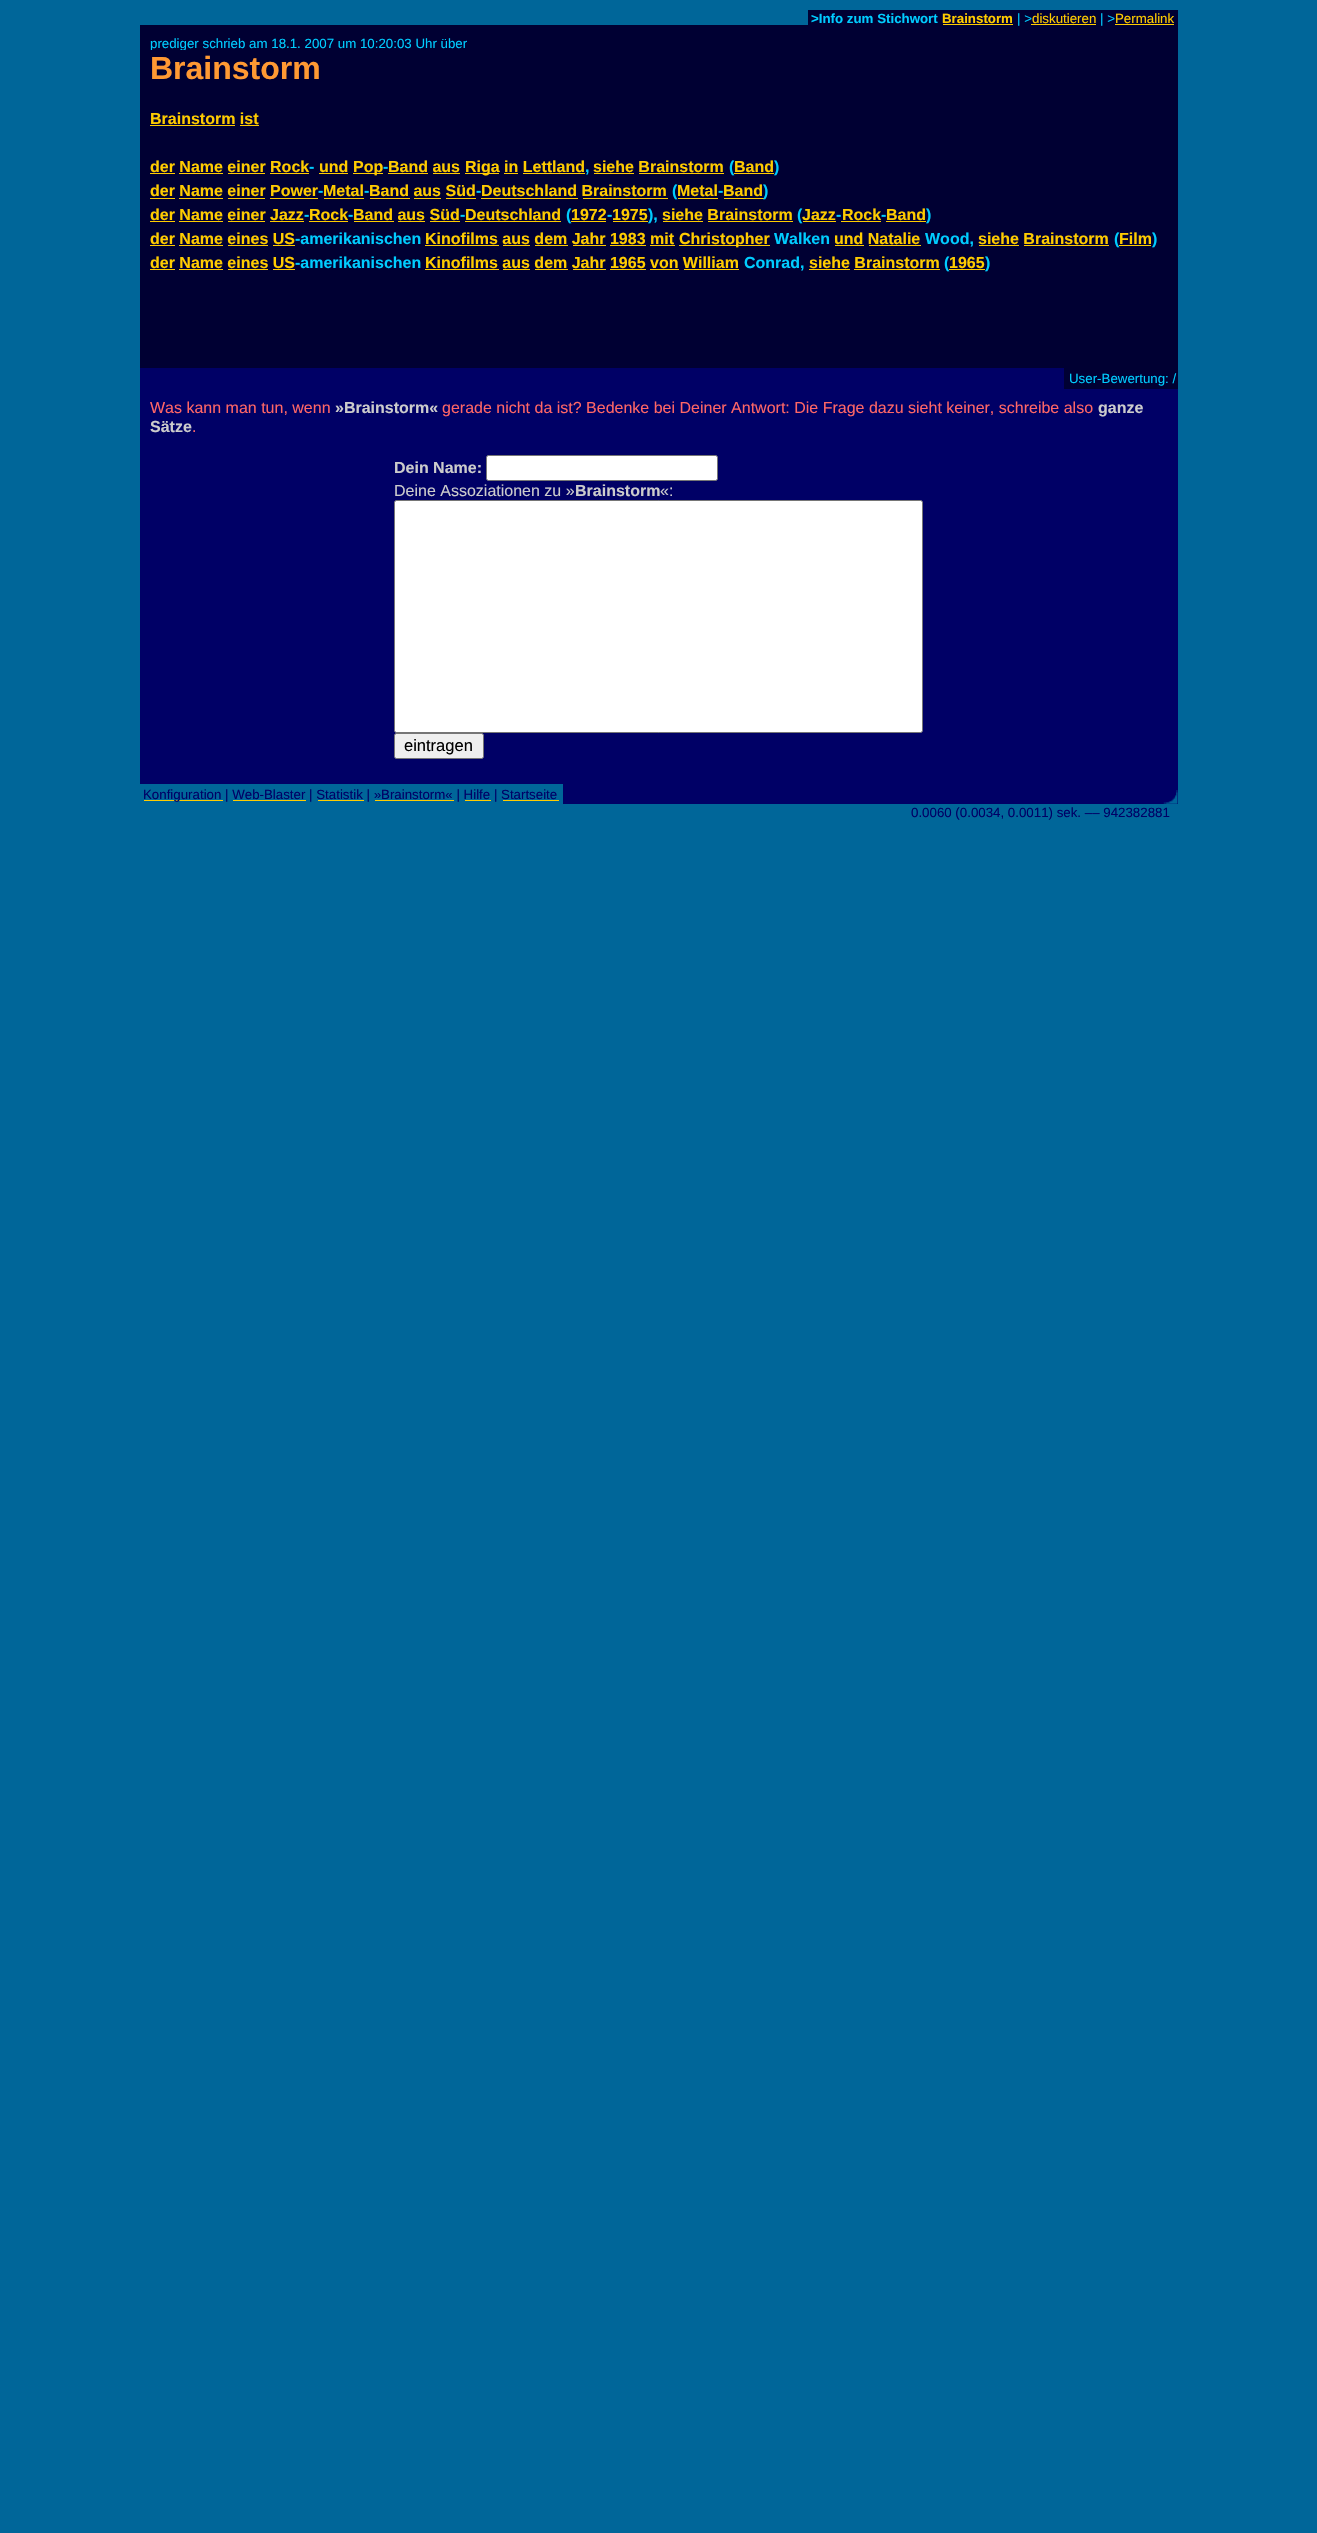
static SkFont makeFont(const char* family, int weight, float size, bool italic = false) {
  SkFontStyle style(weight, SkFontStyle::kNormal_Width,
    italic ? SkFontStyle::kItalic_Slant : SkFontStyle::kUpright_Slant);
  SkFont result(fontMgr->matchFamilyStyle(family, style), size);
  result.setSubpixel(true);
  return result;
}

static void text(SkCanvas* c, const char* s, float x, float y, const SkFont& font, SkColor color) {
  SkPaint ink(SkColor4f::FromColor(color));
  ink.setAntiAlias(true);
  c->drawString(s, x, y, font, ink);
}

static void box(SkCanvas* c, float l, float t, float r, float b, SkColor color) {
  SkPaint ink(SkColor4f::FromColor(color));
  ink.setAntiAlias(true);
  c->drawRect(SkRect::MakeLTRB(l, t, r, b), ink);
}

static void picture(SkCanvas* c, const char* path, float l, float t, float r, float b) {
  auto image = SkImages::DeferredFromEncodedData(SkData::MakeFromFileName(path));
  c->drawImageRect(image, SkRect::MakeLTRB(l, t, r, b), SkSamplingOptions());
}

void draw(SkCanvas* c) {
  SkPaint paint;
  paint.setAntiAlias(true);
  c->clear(0xff006699);
  box(c, 808, 10, 1178, 25, 0xff000033);
  SkFont face1 = makeFont("Liberation Sans", 700, 13.3f);
  text(c, ">Info zum Stichwort", 811, 23, face1, 0xff00ccff);
  text(c, "Brainstorm", 942, 23, face1, 0xffffcc00);
  box(c, 943, 24, 1013, 25, 0xffffcc00);
  box(c, 140, 25, 1178, 368, 0xff000033);
  SkFont face2 = makeFont("Liberation Sans", 400, 13.3f);
  text(c, "| >", 1017, 23, face2, 0xff00ccff);
  box(c, 1031, 24, 1096, 25, 0xffffcc00);
  text(c, "diskutieren", 1032, 23, face2, 0xffffcc00);
  text(c, "| >", 1100, 23, face2, 0xff00ccff);
  box(c, 1115, 24, 1174, 25, 0xffffcc00);
  text(c, "Permalink", 1115, 23, face2, 0xffffcc00);
  text(c, "prediger schrieb am 18.1. 2007 um 10:20:03 Uhr über", 150, 48, face2, 0xff00ccff);
  SkFont face3 = makeFont("Liberation Sans", 700, 32);
  text(c, "Brainstorm", 150, 79, face3, 0xffff9933);
  box(c, 150, 50, 185, 51, 0xff000033);
  SkFont face4 = makeFont("Liberation Sans", 700, 16);
  text(c, "Brainstorm ist", 150, 124, face4, 0xffffcc00);
  box(c, 150, 125, 235, 126, 0xffffcc00);
  box(c, 240, 125, 259, 126, 0xffffcc00);
  text(c, "der Name einer Rock", 150, 172, face4, 0xffffcc00);
  box(c, 150, 173, 175, 174, 0xffffcc00);
  box(c, 179, 173, 223, 174, 0xffffcc00);
  box(c, 228, 173, 265, 174, 0xffffcc00);
  text(c, "-", 309, 172, face4, 0xff00ccff);
  box(c, 270, 173, 309, 174, 0xffffcc00);
  text(c, "und", 319, 172, face4, 0xffffcc00);
  box(c, 319, 173, 348, 174, 0xffffcc00);
  box(c, 353, 173, 383, 174, 0xffffcc00);
  text(c, "Pop", 353, 172, face4, 0xffffcc00);
  text(c, "-", 383, 172, face4, 0xff00ccff);
  box(c, 388, 173, 428, 174, 0xffffcc00);
  text(c, "Band aus", 388, 172, face4, 0xffffcc00);
  box(c, 433, 173, 460, 174, 0xffffcc00);
  box(c, 465, 173, 499, 174, 0xffffcc00);
  text(c, "Riga in Lettland", 465, 172, face4, 0xffffcc00);
  box(c, 504, 173, 518, 174, 0xffffcc00);
  text(c, "siehe Brainstorm", 593, 172, face4, 0xffffcc00);
  box(c, 639, 173, 724, 174, 0xffffcc00);
  text(c, "(", 729, 172, face4, 0xff00ccff);
  box(c, 734, 173, 774, 174, 0xffffcc00);
  text(c, "Band", 734, 172, face4, 0xffffcc00);
  text(c, ")", 774, 172, face4, 0xff00ccff);
  text(c, ",", 585, 172, face4, 0xff00ccff);
  box(c, 523, 173, 585, 174, 0xffffcc00);
  box(c, 594, 173, 634, 174, 0xffffcc00);
  text(c, "der Name einer Power", 150, 196, face4, 0xffffcc00);
  box(c, 150, 198, 175, 199, 0xffffcc00);
  box(c, 179, 198, 223, 199, 0xffffcc00);
  box(c, 228, 198, 265, 199, 0xffffcc00);
  text(c, "-", 318, 196, face4, 0xff00ccff);
  box(c, 270, 198, 318, 199, 0xffffcc00);
  text(c, "Metal", 323, 196, face4, 0xffffcc00);
  text(c, "-", 364, 196, face4, 0xff00ccff);
  box(c, 324, 198, 364, 199, 0xffffcc00);
  box(c, 370, 198, 410, 199, 0xffffcc00);
  text(c, "Band aus Süd", 369, 196, face4, 0xffffcc00);
  box(c, 414, 198, 441, 199, 0xffffcc00);
  text(c, "-", 476, 196, face4, 0xff00ccff);
  box(c, 446, 198, 476, 199, 0xffffcc00);
  box(c, 481, 198, 578, 199, 0xffffcc00);
  text(c, "Deutschland Brainstorm", 481, 196, face4, 0xffffcc00);
  box(c, 583, 198, 668, 199, 0xffffcc00);
  text(c, "(", 672, 196, face4, 0xff00ccff);
  box(c, 678, 198, 718, 199, 0xffffcc00);
  text(c, "Metal", 677, 196, face4, 0xffffcc00);
  text(c, "-", 718, 196, face4, 0xff00ccff);
  text(c, "Band", 723, 196, face4, 0xffffcc00);
  box(c, 724, 198, 764, 199, 0xffffcc00);
  text(c, ")", 763, 196, face4, 0xff00ccff);
  text(c, "der Name einer Jazz", 150, 220, face4, 0xffffcc00);
  box(c, 150, 221, 175, 222, 0xffffcc00);
  box(c, 179, 221, 223, 222, 0xffffcc00);
  box(c, 228, 221, 265, 222, 0xffffcc00);
  text(c, "-", 304, 220, face4, 0xff00ccff);
  box(c, 270, 221, 304, 222, 0xffffcc00);
  box(c, 309, 221, 348, 222, 0xffffcc00);
  text(c, "Rock", 309, 220, face4, 0xffffcc00);
  text(c, "-", 348, 220, face4, 0xff00ccff);
  box(c, 354, 221, 394, 222, 0xffffcc00);
  text(c, "Band aus Süd", 353, 220, face4, 0xffffcc00);
  box(c, 398, 221, 425, 222, 0xffffcc00);
  text(c, "-", 460, 220, face4, 0xff00ccff);
  box(c, 430, 221, 460, 222, 0xffffcc00);
  box(c, 465, 221, 561, 222, 0xffffcc00);
  text(c, "Deutschland", 465, 220, face4, 0xffffcc00);
  text(c, "(", 566, 220, face4, 0xff00ccff);
  box(c, 571, 221, 606, 222, 0xffffcc00);
  text(c, "1972", 571, 220, face4, 0xffffcc00);
  text(c, "-", 607, 220, face4, 0xff00ccff);
  text(c, "1975", 612, 220, face4, 0xffffcc00);
  box(c, 613, 221, 648, 222, 0xffffcc00);
  text(c, "),", 648, 220, face4, 0xff00ccff);
  text(c, "siehe Brainstorm", 662, 220, face4, 0xffffcc00);
  box(c, 663, 221, 703, 222, 0xffffcc00);
  box(c, 708, 221, 793, 222, 0xffffcc00);
  text(c, "(", 797, 220, face4, 0xff00ccff);
  box(c, 803, 221, 836, 222, 0xffffcc00);
  text(c, "Jazz", 802, 220, face4, 0xffffcc00);
  text(c, "-", 836, 220, face4, 0xff00ccff);
  box(c, 841, 221, 881, 222, 0xffffcc00);
  text(c, "Rock", 842, 220, face4, 0xffffcc00);
  text(c, "-", 881, 220, face4, 0xff00ccff);
  text(c, "Band", 886, 220, face4, 0xffffcc00);
  text(c, ")", 926, 220, face4, 0xff00ccff);
  box(c, 886, 221, 926, 222, 0xffffcc00);
  text(c, "der Name eines US", 150, 244, face4, 0xffffcc00);
  box(c, 150, 245, 175, 246, 0xffffcc00);
  box(c, 179, 245, 223, 246, 0xffffcc00);
  box(c, 228, 245, 268, 246, 0xffffcc00);
  box(c, 273, 245, 295, 246, 0xffffcc00);
  text(c, "-amerikanischen", 295, 244, face4, 0xff00ccff);
  text(c, "Kinofilms aus dem Jahr 1983 mit", 425, 244, face4, 0xffffcc00);
  box(c, 425, 245, 499, 246, 0xffffcc00);
  box(c, 503, 245, 530, 246, 0xffffcc00);
  box(c, 535, 245, 568, 246, 0xffffcc00);
  box(c, 573, 245, 606, 246, 0xffffcc00);
  box(c, 610, 245, 646, 246, 0xffffcc00);
  box(c, 650, 245, 675, 246, 0xffffcc00);
  box(c, 679, 245, 770, 246, 0xffffcc00);
  text(c, "Christopher", 679, 244, face4, 0xffffcc00);
  text(c, "Walken", 774, 244, face4, 0xff00ccff);
  text(c, "und Natalie", 834, 244, face4, 0xffffcc00);
  box(c, 835, 245, 864, 246, 0xffffcc00);
  box(c, 869, 245, 921, 246, 0xffffcc00);
  text(c, "Wood,", 925, 244, face4, 0xff00ccff);
  text(c, "siehe Brainstorm", 978, 244, face4, 0xffffcc00);
  box(c, 979, 245, 1019, 246, 0xffffcc00);
  box(c, 1024, 245, 1109, 246, 0xffffcc00);
  text(c, "(", 1114, 244, face4, 0xff00ccff);
  box(c, 1119, 245, 1151, 246, 0xffffcc00);
  text(c, "Film", 1119, 244, face4, 0xffffcc00);
  text(c, ")", 1152, 244, face4, 0xff00ccff);
  text(c, "der Name eines US", 150, 268, face4, 0xffffcc00);
  box(c, 150, 269, 175, 270, 0xffffcc00);
  box(c, 179, 269, 223, 270, 0xffffcc00);
  box(c, 228, 269, 268, 270, 0xffffcc00);
  box(c, 273, 269, 295, 270, 0xffffcc00);
  text(c, "-amerikanischen", 295, 268, face4, 0xff00ccff);
  text(c, "Kinofilms aus dem Jahr 1965 von William", 425, 268, face4, 0xffffcc00);
  box(c, 425, 269, 499, 270, 0xffffcc00);
  box(c, 503, 269, 530, 270, 0xffffcc00);
  box(c, 535, 269, 568, 270, 0xffffcc00);
  box(c, 573, 269, 606, 270, 0xffffcc00);
  box(c, 610, 269, 646, 270, 0xffffcc00);
  box(c, 650, 269, 679, 270, 0xffffcc00);
  box(c, 684, 269, 739, 270, 0xffffcc00);
  text(c, "Conrad,", 744, 268, face4, 0xff00ccff);
  text(c, "siehe Brainstorm", 809, 268, face4, 0xffffcc00);
  box(c, 809, 269, 850, 270, 0xffffcc00);
  box(c, 854, 269, 940, 270, 0xffffcc00);
  text(c, "(", 944, 268, face4, 0xff00ccff);
  box(c, 949, 269, 985, 270, 0xffffcc00);
  text(c, "1965", 949, 268, face4, 0xffffcc00);
  text(c, ")", 985, 268, face4, 0xff00ccff);
  box(c, 140, 368, 1064, 389, 0xff000066);
  box(c, 1064, 368, 1178, 389, 0xff000033);
  text(c, "User-Bewertung: /", 1069, 383, face2, 0xff00ccff);
  box(c, 140, 389, 1178, 784, 0xff000066);
  SkFont face5 = makeFont("Liberation Sans", 400, 16);
  text(c, "Was kann man tun, wenn", 150, 413, face5, 0xffff6666);
  text(c, "»Brainstorm«", 335, 413, face4, 0xffcccccc);
  text(c, "gerade nicht da ist? Bedenke bei Deiner Antwort: Die Frage dazu sieht keiner, schreibe also", 442, 413, face5, 0xffff6666);
  text(c, "ganze", 1098, 413, face4, 0xffcccccc);
  text(c, "Sätze", 150, 432, face4, 0xffcccccc);
  text(c, ".", 192, 432, face5, 0xffff6666);
  text(c, "Dein Name:", 394, 473, face4, 0xffcccccc);
  paint.setColor(0xffffffff);
  c->drawRoundRect(SkRect::MakeLTRB(486.5f, 455.5f, 717.5f, 480.5f), 2, 2, paint);
  paint.setStyle(SkPaint::kStroke_Style);
  paint.setStrokeWidth(1);
  paint.setColor(0xff767676);
  c->drawRoundRect(SkRect::MakeLTRB(486.5f, 455.5f, 717.5f, 480.5f), 2, 2, paint);
  text(c, "Deine Assoziationen zu »", 394, 496, face5, 0xffcccccc);
  text(c, "Brainstorm", 575, 496, face4, 0xffcccccc);
  text(c, "«:", 660, 496, face5, 0xffcccccc);
  paint.setStyle(SkPaint::kFill_Style);
  paint.setColor(0xffffffff);
  c->drawRoundRect(SkRect::MakeLTRB(394.5f, 500.5f, 922.5f, 732.5f), 2, 2, paint);
  paint.setStyle(SkPaint::kStroke_Style);
  paint.setColor(0xff767676);
  c->drawRoundRect(SkRect::MakeLTRB(394.5f, 500.5f, 922.5f, 732.5f), 2, 2, paint);
  paint.setStyle(SkPaint::kFill_Style);
  paint.setColor(0xffefefef);
  c->drawRoundRect(SkRect::MakeLTRB(394.5f, 733.5f, 483.5f, 758.5f), 2, 2, paint);
  paint.setStyle(SkPaint::kStroke_Style);
  paint.setColor(0xff767676);
  c->drawRoundRect(SkRect::MakeLTRB(394.5f, 733.5f, 483.5f, 758.5f), 2, 2, paint);
  SkFont face6 = makeFont("Liberation Sans", 400, 16.5f);
  text(c, "eintragen", 404, 751, face6, 0xff000000);
  box(c, 144, 800, 223, 801, 0xffffcc00);
  text(c, "Konfiguration | Web-Blaster | Statistik | »Brainstorm« | Hilfe | Startseite", 143, 799, face2, 0xff000066);
  box(c, 233, 800, 306, 801, 0xffffcc00);
  box(c, 318, 800, 364, 801, 0xffffcc00);
  box(c, 375, 800, 454, 801, 0xffffcc00);
  box(c, 465, 800, 491, 801, 0xffffcc00);
  box(c, 503, 800, 559, 801, 0xffffcc00);
  box(c, 563, 784, 1178, 804, 0xff000066);
  picture(c, "img_01.png", 1163, 790, 1178, 804);
  text(c, "0.0060 (0.0034, 0.0011) sek. –– 942382881", 911, 817, face2, 0xff000066);
}
